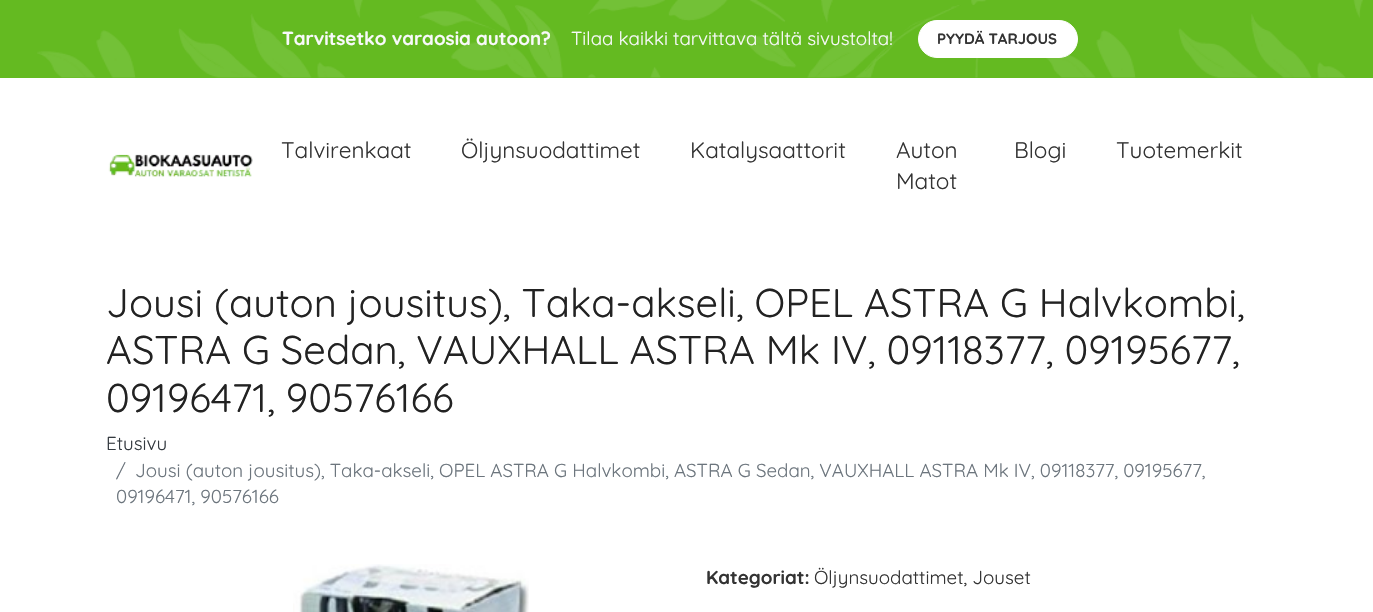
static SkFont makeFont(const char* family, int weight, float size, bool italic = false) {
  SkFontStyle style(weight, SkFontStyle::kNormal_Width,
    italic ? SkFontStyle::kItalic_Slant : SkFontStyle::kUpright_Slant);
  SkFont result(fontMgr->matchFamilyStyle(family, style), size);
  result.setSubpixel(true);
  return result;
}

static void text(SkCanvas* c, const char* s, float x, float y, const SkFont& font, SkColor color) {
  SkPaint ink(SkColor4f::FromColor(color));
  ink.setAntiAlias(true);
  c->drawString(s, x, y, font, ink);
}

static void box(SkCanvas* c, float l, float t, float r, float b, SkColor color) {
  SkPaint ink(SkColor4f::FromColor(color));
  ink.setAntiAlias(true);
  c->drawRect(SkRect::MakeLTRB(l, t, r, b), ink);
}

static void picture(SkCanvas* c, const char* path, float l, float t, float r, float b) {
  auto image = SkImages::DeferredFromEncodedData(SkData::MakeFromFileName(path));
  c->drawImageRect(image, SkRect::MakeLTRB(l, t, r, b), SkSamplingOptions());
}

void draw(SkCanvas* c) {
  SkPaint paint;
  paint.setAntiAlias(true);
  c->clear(0xffffffff);
  box(c, 0, 0, 1373, 78, 0xff64ba21);
  picture(c, "img_01.png", 37, 0, 1363, 78);
  SkFont face1 = makeFont("Quicksand", 700, 18.75f);
  text(c, "Tarvitsetko varaosia autoon?", 282, 45, face1, 0xfff8f9fa);
  SkFont face2 = makeFont("Quicksand", 400, 18.75f);
  text(c, "Tilaa kaikki tarvittava tältä sivustolta!", 571, 45, face2, 0xfff8f9fa);
  paint.setColor(0xffffffff);
  c->drawRoundRect(SkRect::MakeLTRB(918.5f, 20.5f, 1077.5f, 57.5f), 18.5f, 18.5f, paint);
  paint.setStyle(SkPaint::kStroke_Style);
  paint.setStrokeWidth(1);
  c->drawRoundRect(SkRect::MakeLTRB(918.5f, 20.5f, 1077.5f, 57.5f), 18.5f, 18.5f, paint);
  SkFont face3 = makeFont("Quicksand", 700, 15);
  text(c, "PYYDÄ TARJOUS", 937, 44, face3, 0xff333333);
  picture(c, "img_02.png", 108, 154, 253, 177);
  SkFont face4 = makeFont("Quicksand", 400, 22.5f);
  text(c, "Talvirenkaat", 281, 158, face4, 0xff333333);
  text(c, "Öljynsuodattimet", 461, 158, face4, 0xff333333);
  text(c, "Katalysaattorit", 690, 158, face4, 0xff333333);
  text(c, "Auton", 896, 158, face4, 0xff333333);
  text(c, "Matot", 896, 189, face4, 0xff333333);
  text(c, "Blogi", 1014, 158, face4, 0xff333333);
  text(c, "Tuotemerkit", 1116, 158, face4, 0xff333333);
  SkFont face5 = makeFont("Quicksand", 400, 40);
  text(c, "Jousi (auton jousitus), Taka-akseli, OPEL ASTRA G Halvkombi,", 106, 317, face5, 0xff222222);
  text(c, "ASTRA G Sedan, VAUXHALL ASTRA Mk IV, 09118377, 09195677,", 106, 364, face5, 0xff222222);
  text(c, "09196471, 90576166", 106, 412, face5, 0xff222222);
  text(c, "Etusivu", 106, 450, face2, 0xff343a40);
  text(c, "/", 116, 477, face2, 0xff6c757d);
  text(c, "Jousi (auton jousitus), Taka-akseli, OPEL ASTRA G Halvkombi, ASTRA G Sedan, VAUXHALL ASTRA Mk IV, 09118377, 09195677,", 135, 477, face2, 0xff6c757d);
  text(c, "09196471, 90576166", 116, 503, face2, 0xff6c757d);
  picture(c, "img_03.png", 293, 564, 529, 612);
  text(c, "Kategoriat:", 706, 584, face1, 0xff333333);
  text(c, "Öljynsuodattimet, Jouset", 814, 584, face2, 0xff333333);
}
